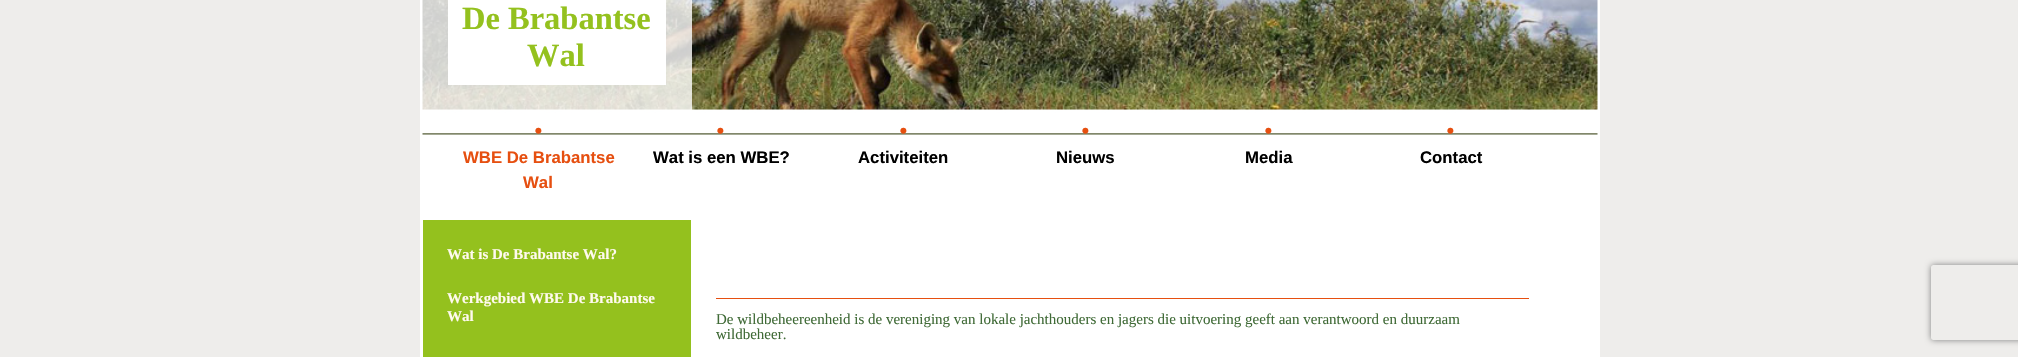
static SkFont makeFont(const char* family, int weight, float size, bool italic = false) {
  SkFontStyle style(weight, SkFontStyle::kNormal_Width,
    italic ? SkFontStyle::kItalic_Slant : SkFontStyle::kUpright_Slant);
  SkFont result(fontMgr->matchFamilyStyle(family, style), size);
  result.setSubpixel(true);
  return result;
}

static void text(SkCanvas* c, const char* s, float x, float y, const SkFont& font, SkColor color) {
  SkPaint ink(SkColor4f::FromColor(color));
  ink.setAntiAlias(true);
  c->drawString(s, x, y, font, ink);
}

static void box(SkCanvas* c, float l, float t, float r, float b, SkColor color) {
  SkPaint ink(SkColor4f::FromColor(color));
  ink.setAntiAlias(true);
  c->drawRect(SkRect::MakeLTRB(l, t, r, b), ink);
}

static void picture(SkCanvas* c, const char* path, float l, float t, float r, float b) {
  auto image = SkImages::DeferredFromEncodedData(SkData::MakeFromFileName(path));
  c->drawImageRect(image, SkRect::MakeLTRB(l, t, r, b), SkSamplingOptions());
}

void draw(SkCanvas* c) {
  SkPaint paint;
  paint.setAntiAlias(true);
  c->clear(0xffeeedeb);
  paint.setStyle(SkPaint::kStroke_Style);
  paint.setStrokeWidth(3);
  paint.setColor(0xffffffff);
  c->drawRect(SkRect::MakeLTRB(421.5f, -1.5f, 1598.5f, 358.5f), paint);
  box(c, 423, 110, 1597, 220, 0xffffffff);
  picture(c, "img_02.png", 422, 109, 1598, 135);
  picture(c, "img_01.png", 422, 0, 1598, 110);
  box(c, 422, 0, 692, 110, 0xccffffff);
  box(c, 448, 0, 666, 85, 0xffffffff);
  SkFont face1 = makeFont("Liberation Serif", 700, 32.5f);
  text(c, "De Brabantse", 462, 29, face1, 0xff94c11e);
  text(c, "Wal", 527, 66, face1, 0xff94c11e);
  SkFont face2 = makeFont("Liberation Serif", 400, 25);
  text(c, "•", 534, 139, face2, 0xffe64f10);
  SkFont face3 = makeFont("Liberation Sans", 700, 16.75f);
  text(c, "WBE De Brabantse", 463, 163, face3, 0xffe64f10);
  text(c, "Wal", 523, 188, face3, 0xffe64f10);
  text(c, "•", 716, 139, face2, 0xffe64f10);
  text(c, "Wat is een WBE?", 653, 163, face3, 0xff000000);
  text(c, "•", 899, 139, face2, 0xffe64f10);
  text(c, "Activiteiten", 858, 163, face3, 0xff000000);
  text(c, "•", 1081, 139, face2, 0xffe64f10);
  text(c, "Nieuws", 1056, 163, face3, 0xff000000);
  text(c, "•", 1264, 139, face2, 0xffe64f10);
  text(c, "Media", 1245, 163, face3, 0xff000000);
  text(c, "•", 1446, 139, face2, 0xffe64f10);
  text(c, "Contact", 1420, 163, face3, 0xff000000);
  box(c, 691, 220, 1597, 357, 0xffffffff);
  box(c, 423, 220, 691, 357, 0xff94c11e);
  SkFont face4 = makeFont("Liberation Serif", 700, 15);
  text(c, "Wat is De Brabantse Wal?", 447, 259, face4, 0xfffffaee);
  text(c, "Werkgebied WBE De Brabantse", 447, 303, face4, 0xfffffaee);
  text(c, "Wal", 447, 321, face4, 0xfffffaee);
  box(c, 716, 298, 1529, 299, 0xffe64f10);
  SkFont face5 = makeFont("Liberation Serif", 400, 15);
  text(c, "De wildbeheereenheid is de vereniging van lokale jachthouders en jagers die uitvoering geeft aan verantwoord en duurzaam", 716, 324, face5, 0xff3f6a36);
  text(c, "wildbeheer.", 716, 339, face5, 0xff3f6a36);
  c->save();
  c->clipPath(SkPathBuilder(SkPathFillType::kEvenOdd).moveTo(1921, 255).lineTo(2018, 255).lineTo(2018, 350).lineTo(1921, 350).close().moveTo(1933.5f, 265).lineTo(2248.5f, 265).cubicTo(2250, 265, 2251, 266, 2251, 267.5f).lineTo(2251, 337.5f).cubicTo(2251, 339, 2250, 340, 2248.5f, 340).lineTo(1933.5f, 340).cubicTo(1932, 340, 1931, 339, 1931, 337.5f).lineTo(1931, 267.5f).cubicTo(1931, 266, 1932, 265, 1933.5f, 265).close().detach(), true);
  paint.setStyle(SkPaint::kFill_Style);
  paint.setColor(0xff808080);
  paint.setMaskFilter(SkMaskFilter::MakeBlur(kNormal_SkBlurStyle, 3));
  c->drawRoundRect(SkRect::MakeLTRB(1931, 265, 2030, 340), 2.5f, 2.5f, paint);
  paint.setMaskFilter(nullptr);
  c->restore();
}
